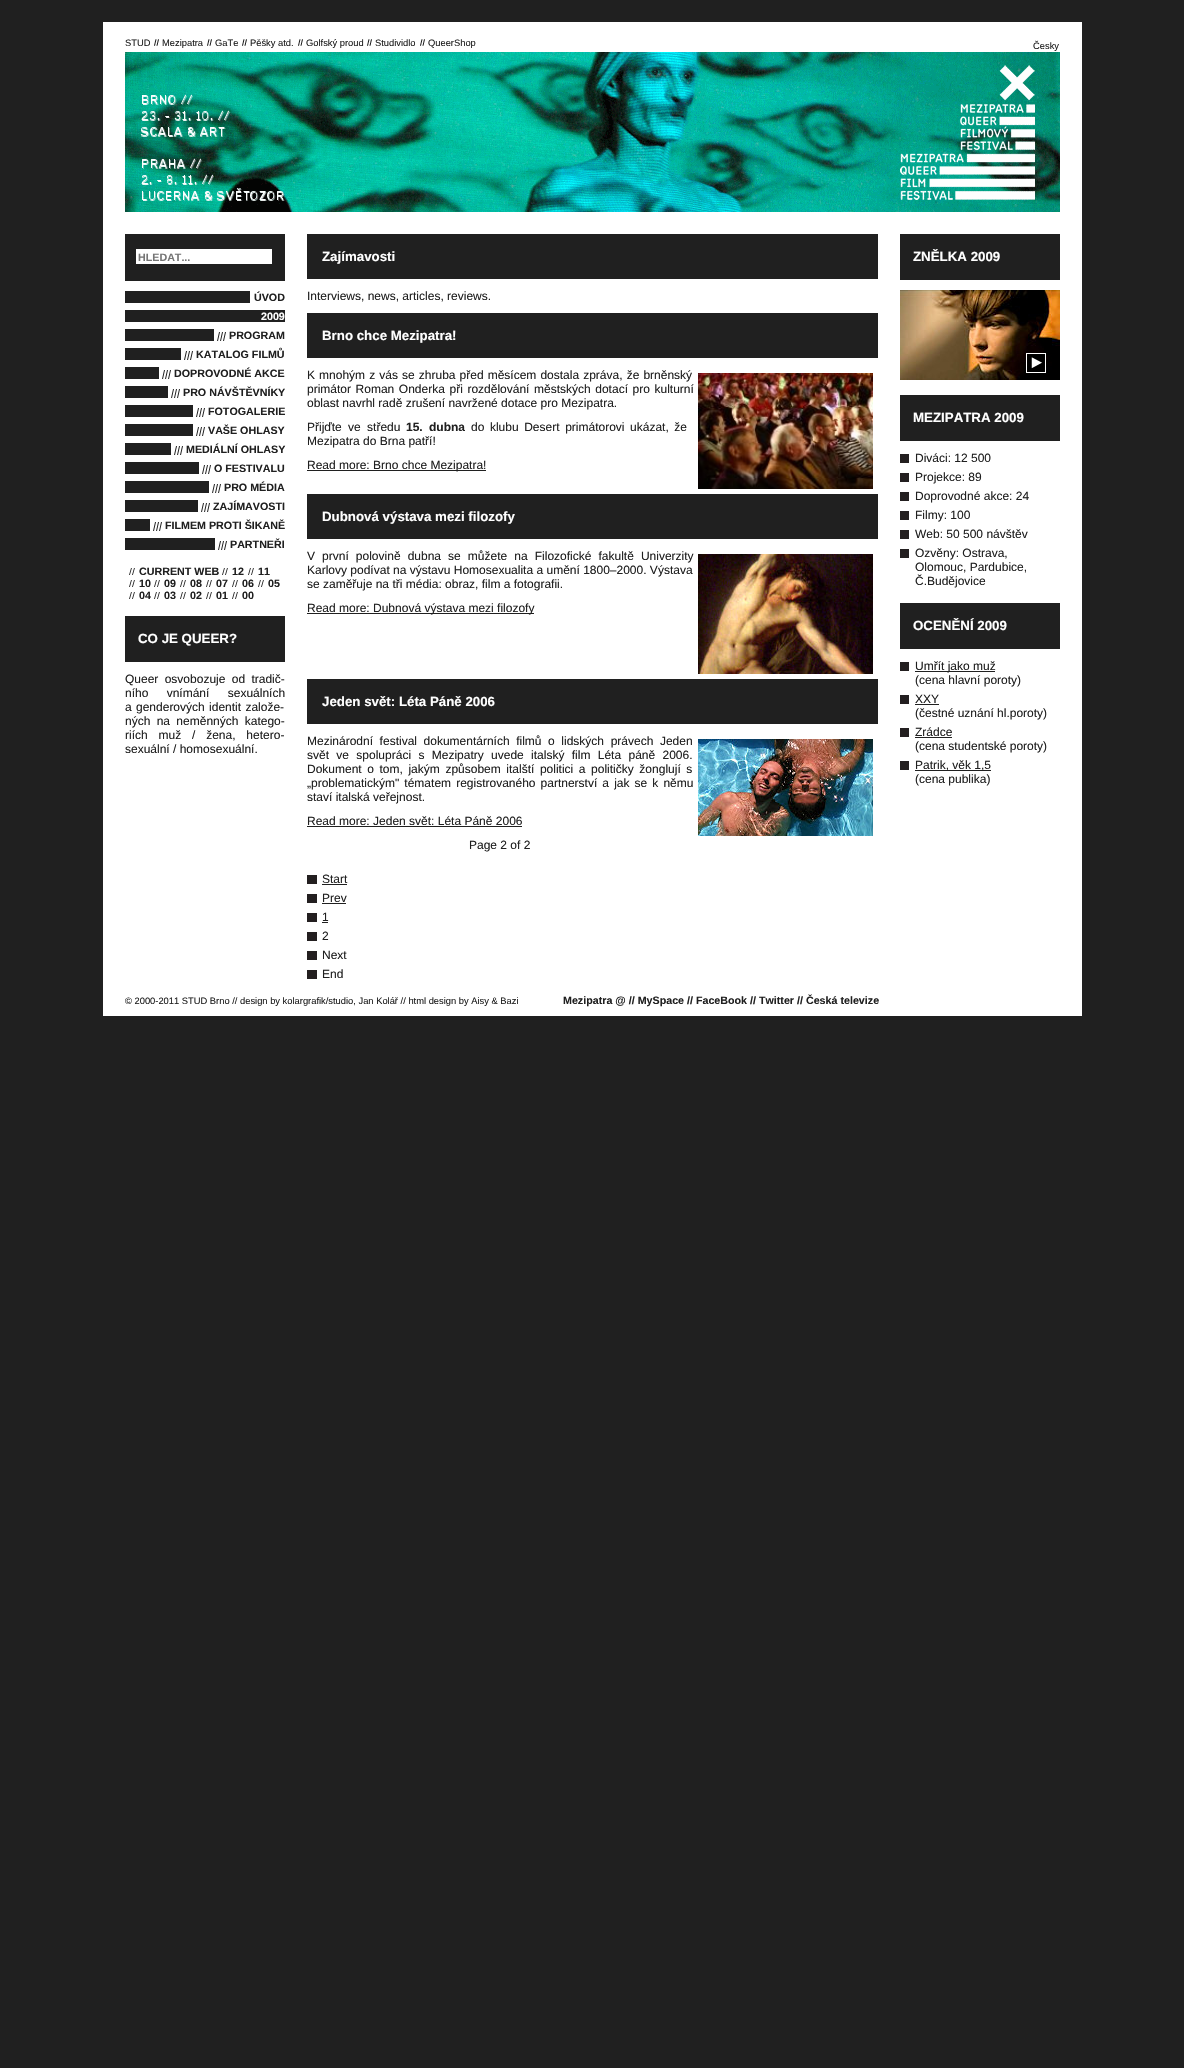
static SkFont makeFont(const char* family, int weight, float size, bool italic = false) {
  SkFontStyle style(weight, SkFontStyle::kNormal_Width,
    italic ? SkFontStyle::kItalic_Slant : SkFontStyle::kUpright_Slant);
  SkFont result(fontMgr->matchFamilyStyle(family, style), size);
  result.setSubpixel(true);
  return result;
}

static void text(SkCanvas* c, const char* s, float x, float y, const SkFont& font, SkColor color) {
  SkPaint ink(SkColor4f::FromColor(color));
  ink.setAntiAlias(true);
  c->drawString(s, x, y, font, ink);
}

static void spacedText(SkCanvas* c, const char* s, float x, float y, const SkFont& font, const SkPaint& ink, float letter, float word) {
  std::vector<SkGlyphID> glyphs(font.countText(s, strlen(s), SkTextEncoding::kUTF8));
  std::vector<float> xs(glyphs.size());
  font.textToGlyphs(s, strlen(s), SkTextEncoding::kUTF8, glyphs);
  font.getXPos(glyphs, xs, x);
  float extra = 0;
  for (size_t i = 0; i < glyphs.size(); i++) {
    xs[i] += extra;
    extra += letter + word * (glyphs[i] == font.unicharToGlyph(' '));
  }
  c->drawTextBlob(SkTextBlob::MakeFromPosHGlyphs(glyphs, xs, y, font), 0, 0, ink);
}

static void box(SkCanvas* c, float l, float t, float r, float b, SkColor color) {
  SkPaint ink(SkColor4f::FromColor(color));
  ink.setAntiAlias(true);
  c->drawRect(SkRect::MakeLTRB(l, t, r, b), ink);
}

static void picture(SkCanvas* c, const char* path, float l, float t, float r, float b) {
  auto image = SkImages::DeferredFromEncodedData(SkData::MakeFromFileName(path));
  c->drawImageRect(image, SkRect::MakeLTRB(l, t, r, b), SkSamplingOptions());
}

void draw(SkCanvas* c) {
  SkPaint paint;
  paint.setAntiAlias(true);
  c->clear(0xff202020);
  box(c, 103, 22, 1082, 1016, 0xffffffff);
  SkFont face1 = makeFont("Liberation Sans", 400, 9.35f);
  text(c, "STUD", 125, 46, face1, 0xff202020);
  picture(c, "img_01.png", 154, 39, 159, 46);
  text(c, "Mezipatra", 162, 46, face1, 0xff202020);
  picture(c, "img_01.png", 207, 39, 212, 46);
  text(c, "GaTe", 215, 46, face1, 0xff202020);
  picture(c, "img_01.png", 242, 39, 247, 46);
  text(c, "Pěšky atd.", 250, 46, face1, 0xff202020);
  picture(c, "img_01.png", 298, 39, 303, 46);
  text(c, "Golfský proud", 306, 46, face1, 0xff202020);
  picture(c, "img_01.png", 367, 39, 372, 46);
  text(c, "Studividlo", 375, 46, face1, 0xff202020);
  picture(c, "img_01.png", 420, 39, 425, 46);
  text(c, "QueerShop", 428, 46, face1, 0xff202020);
  text(c, "Česky", 1033, 49, face1, 0xff202020);
  picture(c, "img_02.png", 125, 52, 1060, 212);
  box(c, 125, 234, 285, 281, 0xff202020);
  box(c, 136, 249, 272, 264, 0xffffffff);
  SkFont face2 = makeFont("Liberation Sans", 700, 10.7f);
  text(c, "HLEDAT...", 138, 261, face2, 0xff757575);
  box(c, 125, 291, 250, 303, 0xff202020);
  text(c, "ÚVOD", 254, 301, face2, 0xff202020);
  box(c, 125, 310, 285, 322, 0xff202020);
  text(c, "2009", 261, 320, face2, 0xffffffff);
  box(c, 125, 329, 214, 341, 0xff202020);
  picture(c, "img_03.png", 217, 332, 226, 341);
  text(c, "PROGRAM", 229, 339, face2, 0xff202020);
  box(c, 125, 348, 181, 360, 0xff202020);
  picture(c, "img_03.png", 184, 351, 193, 360);
  text(c, "KATALOG FILMŮ", 196, 358, face2, 0xff202020);
  box(c, 125, 367, 159, 379, 0xff202020);
  picture(c, "img_03.png", 162, 370, 171, 379);
  text(c, "DOPROVODNÉ AKCE", 174, 377, face2, 0xff202020);
  box(c, 125, 386, 168, 398, 0xff202020);
  picture(c, "img_03.png", 171, 389, 180, 398);
  text(c, "PRO NÁVŠTĚVNÍKY", 183, 396, face2, 0xff202020);
  box(c, 125, 405, 193, 417, 0xff202020);
  picture(c, "img_03.png", 196, 408, 205, 417);
  text(c, "FOTOGALERIE", 208, 415, face2, 0xff202020);
  box(c, 125, 424, 193, 436, 0xff202020);
  picture(c, "img_03.png", 196, 427, 205, 436);
  text(c, "VAŠE OHLASY", 208, 434, face2, 0xff202020);
  box(c, 125, 443, 171, 455, 0xff202020);
  picture(c, "img_03.png", 174, 446, 183, 455);
  text(c, "MEDIÁLNÍ OHLASY", 186, 453, face2, 0xff202020);
  box(c, 125, 462, 199, 474, 0xff202020);
  picture(c, "img_03.png", 202, 465, 211, 474);
  text(c, "O FESTIVALU", 214, 472, face2, 0xff202020);
  box(c, 125, 481, 209, 493, 0xff202020);
  picture(c, "img_03.png", 212, 484, 221, 493);
  text(c, "PRO MÉDIA", 224, 491, face2, 0xff202020);
  box(c, 125, 500, 198, 512, 0xff202020);
  picture(c, "img_03.png", 201, 503, 210, 512);
  text(c, "ZAJÍMAVOSTI", 213, 510, face2, 0xff202020);
  box(c, 125, 519, 150, 531, 0xff202020);
  picture(c, "img_03.png", 153, 522, 162, 531);
  text(c, "FILMEM PROTI ŠIKANĚ", 165, 529, face2, 0xff202020);
  box(c, 125, 538, 215, 550, 0xff202020);
  picture(c, "img_03.png", 218, 541, 227, 550);
  text(c, "PARTNEŘI", 230, 548, face2, 0xff202020);
  picture(c, "img_04.png", 129, 568, 135, 575);
  text(c, "CURRENT WEB", 139, 575, face2, 0xff202020);
  picture(c, "img_04.png", 222, 568, 228, 575);
  text(c, "12", 232, 575, face2, 0xff202020);
  picture(c, "img_04.png", 248, 568, 254, 575);
  text(c, "11", 258, 575, face2, 0xff202020);
  picture(c, "img_04.png", 129, 580, 135, 587);
  text(c, "10", 139, 587, face2, 0xff202020);
  picture(c, "img_04.png", 154, 580, 160, 587);
  text(c, "09", 164, 587, face2, 0xff202020);
  picture(c, "img_04.png", 180, 580, 186, 587);
  text(c, "08", 190, 587, face2, 0xff202020);
  picture(c, "img_04.png", 206, 580, 212, 587);
  text(c, "07", 216, 587, face2, 0xff202020);
  picture(c, "img_04.png", 232, 580, 238, 587);
  text(c, "06", 242, 587, face2, 0xff202020);
  picture(c, "img_04.png", 258, 580, 264, 587);
  text(c, "05", 268, 587, face2, 0xff202020);
  picture(c, "img_04.png", 129, 592, 135, 599);
  text(c, "04", 139, 599, face2, 0xff202020);
  picture(c, "img_04.png", 154, 592, 160, 599);
  text(c, "03", 164, 599, face2, 0xff202020);
  picture(c, "img_04.png", 180, 592, 186, 599);
  text(c, "02", 190, 599, face2, 0xff202020);
  picture(c, "img_04.png", 206, 592, 212, 599);
  text(c, "01", 216, 599, face2, 0xff202020);
  picture(c, "img_04.png", 232, 592, 238, 599);
  text(c, "00", 242, 599, face2, 0xff202020);
  box(c, 125, 616, 285, 662, 0xff202020);
  SkFont face3 = makeFont("Liberation Sans", 700, 13.3f);
  text(c, "CO JE QUEER?", 138, 643, face3, 0xffffffff);
  SkFont face4 = makeFont("Liberation Sans", 400, 12);
  paint.setColor(0xff202020);
  spacedText(c, "Queer osvobozuje od tradič-", 125, 683, face4, paint, 0, 3);
  spacedText(c, "ního vnímání sexuálních", 125, 697, face4, paint, 0, 15);
  spacedText(c, "a genderových identit založe-", 125, 711, face4, paint, 0, 1);
  spacedText(c, "ných na neměnných katego-", 125, 725, face4, paint, 0, 3);
  spacedText(c, "riích muž / žena, hetero-", 125, 739, face4, paint, 0, 7.5f);
  text(c, "sexuální / homosexuální.", 125, 753, face4, 0xff202020);
  box(c, 307, 234, 878, 279, 0xff202020);
  text(c, "Zajímavosti", 322, 261, face3, 0xffffffff);
  text(c, "Interviews, news, articles, reviews.", 307, 300, face4, 0xff202020);
  box(c, 307, 313, 878, 358, 0xff202020);
  text(c, "Brno chce Mezipatra!", 322, 340, face3, 0xffffffff);
  spacedText(c, "K mnohým z vás se zhruba před měsícem dostala zpráva, že brněnský", 307, 379, face4, paint, 0, 0.75f);
  picture(c, "img_05.png", 698, 373, 873, 489);
  spacedText(c, "primátor Roman Onderka při rozdělování městských dotací pro kulturní", 307, 393, face4, paint, 0, 1.25f);
  text(c, "oblast navrhl radě zrušení navržené dotace pro Mezipatra.", 307, 407, face4, 0xff202020);
  spacedText(c, "Přijďte ve středu", 307, 431, face4, paint, 0, 3);
  SkFont face5 = makeFont("Liberation Sans", 700, 12);
  spacedText(c, "15. dubna", 406, 431, face5, paint, 0, 3);
  spacedText(c, "do klubu Desert primátorovi ukázat, že", 471, 431, face4, paint, 0, 2.25f);
  text(c, "Mezipatra do Brna patří!", 307, 445, face4, 0xff202020);
  box(c, 307, 470, 486, 471, 0xff202020);
  text(c, "Read more: Brno chce Mezipatra!", 307, 469, face4, 0xff202020);
  box(c, 307, 494, 878, 539, 0xff202020);
  text(c, "Dubnová výstava mezi filozofy", 322, 521, face3, 0xffffffff);
  spacedText(c, "V první polovině dubna se můžete na Filozofické fakultě Univerzity", 307, 560, face4, paint, 0, 3.75f);
  picture(c, "img_06.png", 698, 554, 873, 674);
  text(c, "Karlovy podívat na výstavu Homosexualita a umění 1800–2000. Výstava", 307, 574, face4, 0xff202020);
  text(c, "se zaměřuje na tři média: obraz, film a fotografii.", 307, 588, face4, 0xff202020);
  box(c, 307, 613, 534, 614, 0xff202020);
  text(c, "Read more: Dubnová výstava mezi filozofy", 307, 612, face4, 0xff202020);
  box(c, 307, 679, 878, 724, 0xff202020);
  text(c, "Jeden svět: Léta Páně 2006", 322, 706, face3, 0xffffffff);
  spacedText(c, "Mezinárodní festival dokumentárních filmů o lidských právech Jeden", 307, 745, face4, paint, 0, 3.25f);
  picture(c, "img_07.png", 698, 739, 873, 836);
  spacedText(c, "svět ve spolupráci s Mezipatry uvede italský film Léta páně 2006.", 307, 759, face4, paint, 0, 4);
  spacedText(c, "Dokument o tom, jakým způsobem italští politici a političky žonglují s", 307, 773, face4, paint, 0, 2.25f);
  spacedText(c, "„problematickým\" tématem registrovaného partnerství a jak se k němu", 307, 787, face4, paint, 0, 1.75f);
  text(c, "staví italská veřejnost.", 307, 801, face4, 0xff202020);
  text(c, "Read more: Jeden svět: Léta Páně 2006", 307, 825, face4, 0xff202020);
  box(c, 307, 826, 522, 827, 0xff202020);
  text(c, "Page 2 of 2", 469, 849, face4, 0xff202020);
  box(c, 307, 875, 317, 884, 0xff231f20);
  text(c, "Start", 322, 883, face4, 0xff202020);
  box(c, 322, 884, 347, 885, 0xff202020);
  box(c, 307, 894, 317, 903, 0xff231f20);
  text(c, "Prev", 322, 902, face4, 0xff202020);
  box(c, 322, 903, 346, 904, 0xff202020);
  box(c, 307, 913, 317, 922, 0xff231f20);
  text(c, "1", 322, 921, face4, 0xff202020);
  box(c, 322, 922, 328, 923, 0xff202020);
  box(c, 307, 932, 317, 941, 0xff231f20);
  text(c, "2", 322, 940, face4, 0xff202020);
  box(c, 307, 951, 317, 960, 0xff231f20);
  text(c, "Next", 322, 959, face4, 0xff202020);
  box(c, 307, 970, 317, 979, 0xff231f20);
  text(c, "End", 322, 978, face4, 0xff202020);
  box(c, 900, 234, 1060, 280, 0xff202020);
  text(c, "ZNĚLKA 2009", 913, 261, face3, 0xffffffff);
  picture(c, "img_08.png", 900, 290, 1060, 380);
  picture(c, "img_09.png", 1026, 353, 1046, 373);
  box(c, 900, 395, 1060, 441, 0xff202020);
  text(c, "MEZIPATRA 2009", 913, 422, face3, 0xffffffff);
  box(c, 900, 454, 909, 463, 0xff231f20);
  text(c, "Diváci: 12 500", 915, 462, face4, 0xff202020);
  box(c, 900, 473, 909, 482, 0xff231f20);
  text(c, "Projekce: 89", 915, 481, face4, 0xff202020);
  box(c, 900, 492, 909, 501, 0xff231f20);
  text(c, "Doprovodné akce: 24", 915, 500, face4, 0xff202020);
  box(c, 900, 511, 909, 520, 0xff231f20);
  text(c, "Filmy: 100", 915, 519, face4, 0xff202020);
  box(c, 900, 530, 909, 539, 0xff231f20);
  text(c, "Web: 50 500 návštěv", 915, 538, face4, 0xff202020);
  box(c, 900, 549, 909, 558, 0xff231f20);
  text(c, "Ozvěny: Ostrava,", 915, 557, face4, 0xff202020);
  text(c, "Olomouc, Pardubice,", 915, 571, face4, 0xff202020);
  text(c, "Č.Budějovice", 915, 585, face4, 0xff202020);
  box(c, 900, 603, 1060, 649, 0xff202020);
  text(c, "OCENĚNÍ 2009", 913, 630, face3, 0xffffffff);
  box(c, 900, 662, 909, 671, 0xff231f20);
  box(c, 915, 671, 995, 672, 0xff202020);
  text(c, "Umřít jako muž", 915, 670, face4, 0xff202020);
  text(c, "(cena hlavní poroty)", 915, 684, face4, 0xff202020);
  box(c, 900, 695, 909, 704, 0xff231f20);
  text(c, "XXY", 915, 703, face4, 0xff202020);
  box(c, 915, 704, 939, 705, 0xff202020);
  text(c, "(čestné uznání hl.poroty)", 915, 717, face4, 0xff202020);
  box(c, 900, 728, 909, 737, 0xff231f20);
  text(c, "Zrádce", 915, 736, face4, 0xff202020);
  box(c, 915, 737, 952, 738, 0xff202020);
  text(c, "(cena studentské poroty)", 915, 750, face4, 0xff202020);
  box(c, 900, 761, 909, 770, 0xff231f20);
  box(c, 915, 770, 991, 771, 0xff202020);
  text(c, "Patrik, věk 1,5", 915, 769, face4, 0xff202020);
  text(c, "(cena publika)", 915, 783, face4, 0xff202020);
  text(c, "© 2000-2011 STUD Brno // design by kolargrafik/studio, Jan Kolář // html design by Aisy & Bazi", 125, 1004, face1, 0xff202020);
  text(c, "Mezipatra @ // MySpace // FaceBook // Twitter // Česká televize", 563, 1004, face2, 0xff202020);
}
